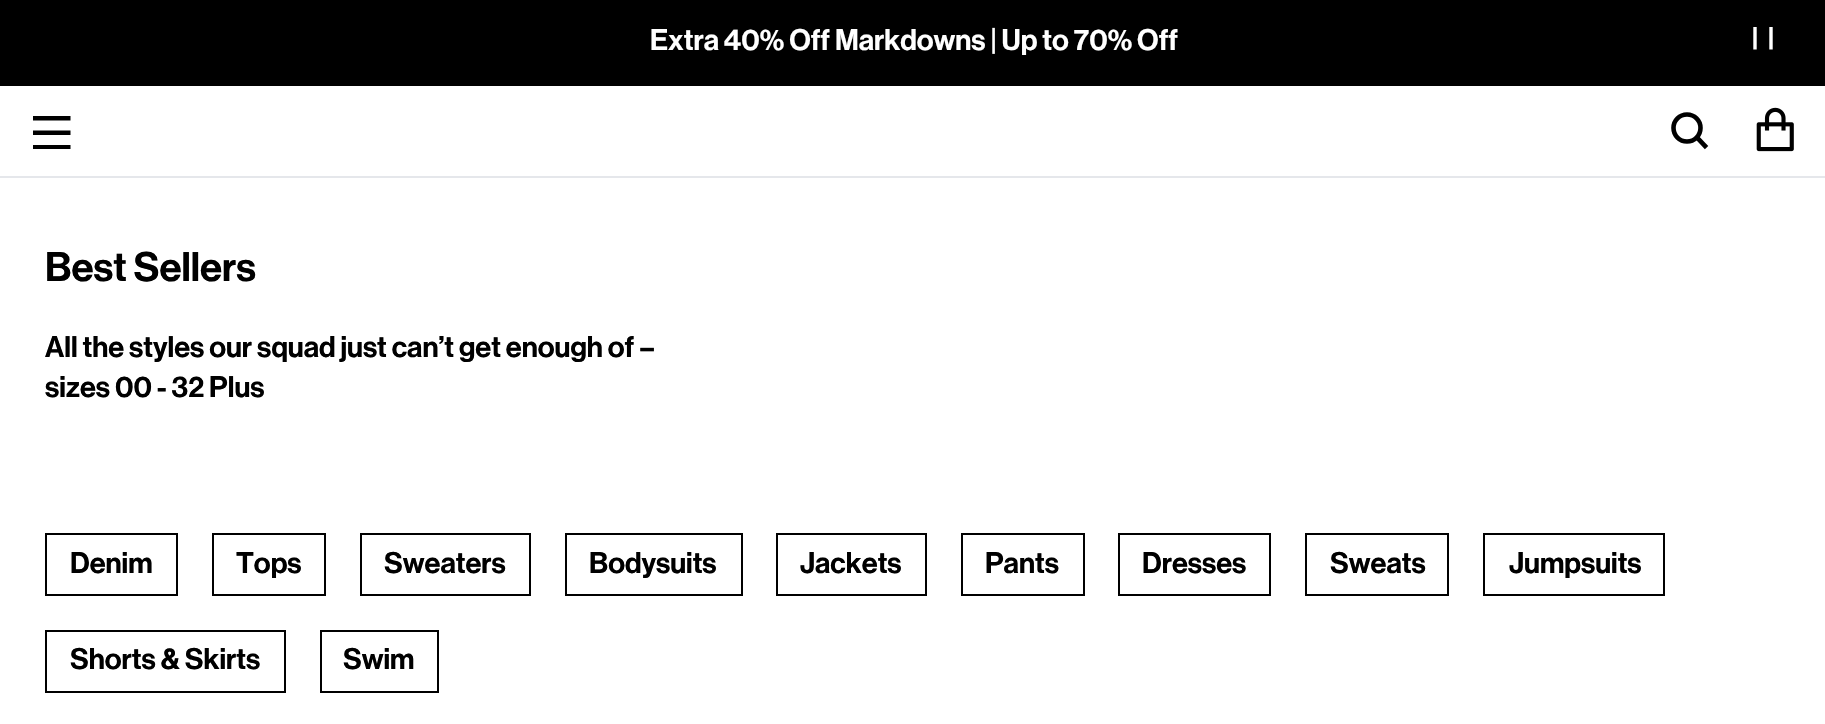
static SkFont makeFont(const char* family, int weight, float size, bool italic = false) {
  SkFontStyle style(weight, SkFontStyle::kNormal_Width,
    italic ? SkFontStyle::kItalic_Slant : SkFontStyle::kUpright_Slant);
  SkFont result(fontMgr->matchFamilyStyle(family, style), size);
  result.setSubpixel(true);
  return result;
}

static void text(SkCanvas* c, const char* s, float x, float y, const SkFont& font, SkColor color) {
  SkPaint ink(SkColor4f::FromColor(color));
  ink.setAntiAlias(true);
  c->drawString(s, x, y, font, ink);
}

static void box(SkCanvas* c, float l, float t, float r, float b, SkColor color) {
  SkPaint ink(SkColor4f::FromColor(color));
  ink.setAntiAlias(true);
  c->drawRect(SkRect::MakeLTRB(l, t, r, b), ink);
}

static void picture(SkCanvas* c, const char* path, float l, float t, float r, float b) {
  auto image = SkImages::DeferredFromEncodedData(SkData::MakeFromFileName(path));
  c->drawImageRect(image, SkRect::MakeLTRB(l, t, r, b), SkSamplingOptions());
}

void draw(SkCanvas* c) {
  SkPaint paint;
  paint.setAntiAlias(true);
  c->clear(0xffffffff);
  box(c, 0, 0, 1825, 86, 0xff000000);
  SkFont face1 = makeFont("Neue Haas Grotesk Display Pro", 600, 29.25f);
  text(c, "Extra 40% Off Markdowns | Up to 70% Off", 650, 50, face1, 0xffffffff);
  paint.setStyle(SkPaint::kStroke_Style);
  paint.setStrokeWidth(3.4f);
  paint.setColor(0xffffffff);
  c->drawPath(SkPathBuilder().moveTo(1755, 27).lineTo(1755, 49.5f).moveTo(1771, 27).lineTo(1771, 49.5f).detach(), paint);
  box(c, 0, 176, 1825, 178, 0xffe5e7eb);
  paint.setStyle(SkPaint::kFill_Style);
  paint.setColor(0xff000000);
  c->drawPath(SkPathBuilder().moveTo(33, 116).lineTo(70.5f, 116).lineTo(70.5f, 120.5f).lineTo(33, 120.5f).close().moveTo(33, 130.5f).lineTo(70.5f, 130.5f).lineTo(70.5f, 135).lineTo(33, 135).close().moveTo(33, 145).lineTo(70.5f, 145).lineTo(70.5f, 149).lineTo(33, 149).close().detach(), paint);
  paint.setStyle(SkPaint::kStroke_Style);
  paint.setStrokeWidth(4.6f);
  c->drawCircle(1687, 128, 13.5f, paint);
  paint.setStrokeCap(SkPaint::kSquare_Cap);
  c->drawPath(SkPathBuilder().moveTo(1698.5f, 139).lineTo(1705, 146).detach(), paint);
  picture(c, "img_01.png", 1756, 107, 1794, 152);
  SkFont face2 = makeFont("Neue Haas Grotesk Display Pro", 600, 40.5f);
  text(c, "Best Sellers", 45, 281, face2, 0xff000000);
  text(c, "All the styles our squad just can’t get enough of –", 45, 357, face1, 0xff000000);
  text(c, "sizes 00 - 32 Plus", 45, 397, face1, 0xff000000);
  paint.setStrokeWidth(2);
  paint.setStrokeCap(SkPaint::kButt_Cap);
  c->drawRect(SkRect::MakeLTRB(46, 534, 177, 595), paint);
  text(c, "Denim", 70, 573, face1, 0xff000000);
  c->drawRect(SkRect::MakeLTRB(213, 534, 325, 595), paint);
  text(c, "Tops", 236, 573, face1, 0xff000000);
  c->drawRect(SkRect::MakeLTRB(361, 534, 530, 595), paint);
  text(c, "Sweaters", 384, 573, face1, 0xff000000);
  c->drawRect(SkRect::MakeLTRB(566, 534, 742, 595), paint);
  text(c, "Bodysuits", 589, 573, face1, 0xff000000);
  c->drawRect(SkRect::MakeLTRB(777, 534, 926, 595), paint);
  text(c, "Jackets", 800, 573, face1, 0xff000000);
  c->drawRect(SkRect::MakeLTRB(962, 534, 1084, 595), paint);
  text(c, "Pants", 985, 573, face1, 0xff000000);
  c->drawRect(SkRect::MakeLTRB(1119, 534, 1270, 595), paint);
  text(c, "Dresses", 1142, 573, face1, 0xff000000);
  c->drawRect(SkRect::MakeLTRB(1306, 534, 1448, 595), paint);
  text(c, "Sweats", 1330, 573, face1, 0xff000000);
  c->drawRect(SkRect::MakeLTRB(1484, 534, 1664, 595), paint);
  text(c, "Jumpsuits", 1509, 573, face1, 0xff000000);
  c->drawRect(SkRect::MakeLTRB(46, 631, 285, 692), paint);
  text(c, "Shorts & Skirts", 70, 669, face1, 0xff000000);
  c->drawRect(SkRect::MakeLTRB(321, 631, 438, 692), paint);
  text(c, "Swim", 343, 669, face1, 0xff000000);
}
